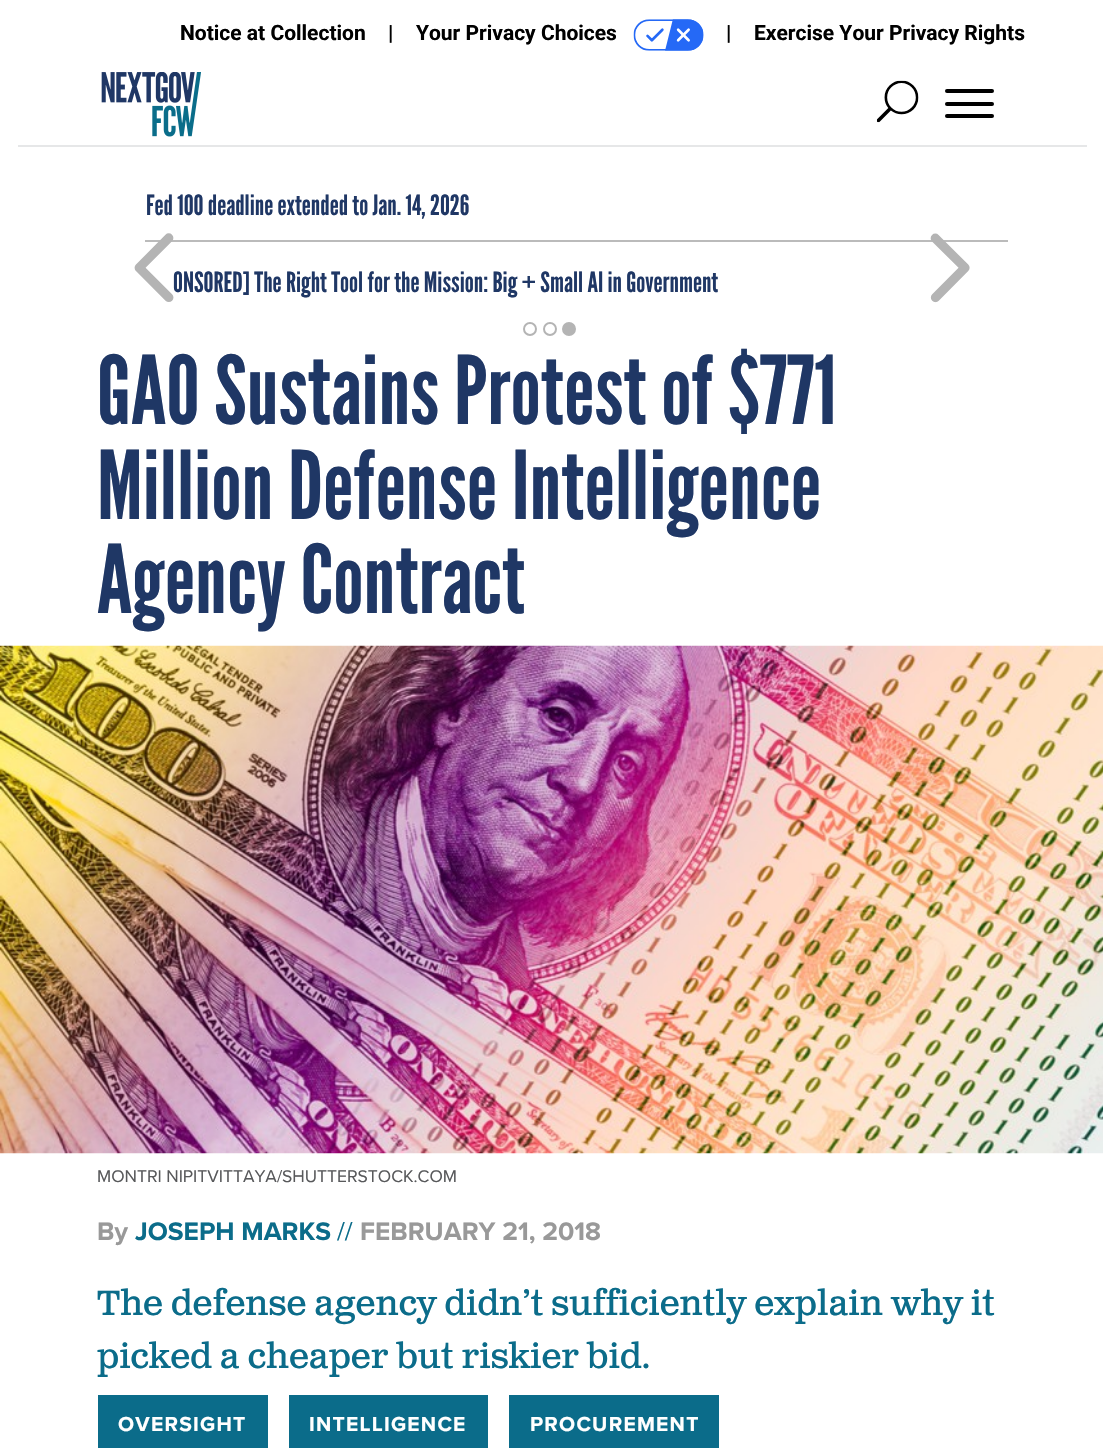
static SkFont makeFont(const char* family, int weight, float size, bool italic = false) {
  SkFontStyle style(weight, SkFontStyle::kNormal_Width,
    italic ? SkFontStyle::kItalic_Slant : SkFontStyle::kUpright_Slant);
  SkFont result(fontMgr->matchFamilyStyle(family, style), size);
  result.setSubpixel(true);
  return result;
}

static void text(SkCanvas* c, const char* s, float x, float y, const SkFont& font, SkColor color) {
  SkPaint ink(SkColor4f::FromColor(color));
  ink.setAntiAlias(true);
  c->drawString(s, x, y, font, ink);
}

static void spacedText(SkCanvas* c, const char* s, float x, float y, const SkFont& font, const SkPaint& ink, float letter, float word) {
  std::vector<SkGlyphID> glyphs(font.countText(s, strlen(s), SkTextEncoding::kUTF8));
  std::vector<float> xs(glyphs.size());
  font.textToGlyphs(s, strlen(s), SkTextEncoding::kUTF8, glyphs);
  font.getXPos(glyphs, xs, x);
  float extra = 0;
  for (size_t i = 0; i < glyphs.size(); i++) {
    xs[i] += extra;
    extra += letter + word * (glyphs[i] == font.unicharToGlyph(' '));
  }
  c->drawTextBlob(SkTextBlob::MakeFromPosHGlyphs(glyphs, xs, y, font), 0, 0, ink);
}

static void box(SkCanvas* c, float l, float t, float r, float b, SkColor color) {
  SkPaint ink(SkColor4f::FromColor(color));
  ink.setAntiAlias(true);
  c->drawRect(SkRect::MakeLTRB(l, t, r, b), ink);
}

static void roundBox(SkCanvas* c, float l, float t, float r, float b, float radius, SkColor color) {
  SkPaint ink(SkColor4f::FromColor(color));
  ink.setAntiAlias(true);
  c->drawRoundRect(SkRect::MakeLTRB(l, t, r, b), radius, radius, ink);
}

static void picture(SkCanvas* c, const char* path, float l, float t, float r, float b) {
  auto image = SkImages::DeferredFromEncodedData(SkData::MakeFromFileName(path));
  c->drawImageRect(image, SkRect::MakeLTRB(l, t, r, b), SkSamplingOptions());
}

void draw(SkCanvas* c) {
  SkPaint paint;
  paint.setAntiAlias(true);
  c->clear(0xffffffff);
  SkFont face1 = makeFont("Roboto", 700, 21);
  text(c, "Notice at Collection", 180, 40, face1, 0xff000000);
  text(c, "|", 388, 40, face1, 0xff000000);
  text(c, "Your Privacy Choices", 416, 40, face1, 0xff000000);
  picture(c, "img_01.png", 633, 19, 704, 51);
  text(c, "|", 726, 40, face1, 0xff000000);
  text(c, "Exercise Your Privacy Rights", 754, 40, face1, 0xff000000);
  box(c, 18, 145, 1087, 147, 0xffe6e7e8);
  picture(c, "img_02.png", 101, 72, 201, 137);
  picture(c, "img_03.png", 876, 80, 919, 123);
  roundBox(c, 945, 102, 994, 106, 2, 0xff000000);
  roundBox(c, 945, 89, 994, 93, 2, 0xff000000);
  roundBox(c, 945, 114, 994, 118, 2, 0xff000000);
  SkFont face2 = makeFont("League Gothic", 400, 28);
  text(c, "Fed 100 deadline extended to Jan. 14, 2026", 146, 215, face2, 0xff1f3765);
  box(c, 145, 240, 1008, 242, 0xffbbbbbb);
  text(c, "ONSORED] The Right Tool for the Mission: Big + Small AI in Government", 173, 292, face2, 0xff1f3765);
  picture(c, "img_04.png", 134, 233, 174, 302);
  picture(c, "img_05.png", 930, 233, 970, 303);
  paint.setStyle(SkPaint::kStroke_Style);
  paint.setStrokeWidth(2);
  paint.setColor(0xffb4b4b4);
  c->drawCircle(530, 329, 6, paint);
  c->drawCircle(550, 329, 6, paint);
  paint.setStyle(SkPaint::kFill_Style);
  c->drawCircle(569, 329, 6, paint);
  paint.setStyle(SkPaint::kStroke_Style);
  c->drawCircle(569, 329, 6, paint);
  SkFont face3 = makeFont("League Gothic", 400, 94.5f);
  text(c, "GAO Sustains Protest of $771", 97, 424, face3, 0xff1f3765);
  text(c, "Million Defense Intelligence", 97, 519, face3, 0xff1f3765);
  text(c, "Agency Contract", 97, 613, face3, 0xff1f3765);
  picture(c, "img_06.png", 0, 645, 1103, 1154);
  SkFont face4 = makeFont("Proxima Nova", 400, 17.5f);
  text(c, "MONTRI NIPITVITTAYA/SHUTTERSTOCK.COM", 97, 1182, face4, 0xff58595b);
  SkFont face5 = makeFont("Proxima Nova", 700, 26.25f);
  text(c, "By", 97, 1240, face5, 0xff999999);
  text(c, "JOSEPH MARKS", 135, 1240, face5, 0xff0b6c8a);
  SkFont face6 = makeFont("Proxima Nova", 400, 26.25f);
  text(c, "//", 337, 1240, face6, 0xff0b6c8a);
  text(c, "FEBRUARY 21, 2018", 360, 1240, face5, 0xff999999);
  SkFont face7 = makeFont("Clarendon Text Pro", 400, 35);
  text(c, "The defense agency didn’t sufficiently explain why it", 97, 1315, face7, 0xff0b6c8a);
  text(c, "picked a cheaper but riskier bid.", 97, 1368, face7, 0xff0b6c8a);
  box(c, 98, 1395, 268, 1448, 0xff0b6c8a);
  SkFont face8 = makeFont("Proxima Nova", 700, 21);
  paint.setStyle(SkPaint::kFill_Style);
  paint.setColor(0xffffffff);
  spacedText(c, "OVERSIGHT", 118, 1431, face8, paint, 1.25f, 0);
  box(c, 289, 1395, 488, 1448, 0xff0b6c8a);
  spacedText(c, "INTELLIGENCE", 309, 1431, face8, paint, 1.25f, 0);
  box(c, 509, 1395, 719, 1448, 0xff0b6c8a);
  spacedText(c, "PROCUREMENT", 530, 1431, face8, paint, 1.25f, 0);
}
